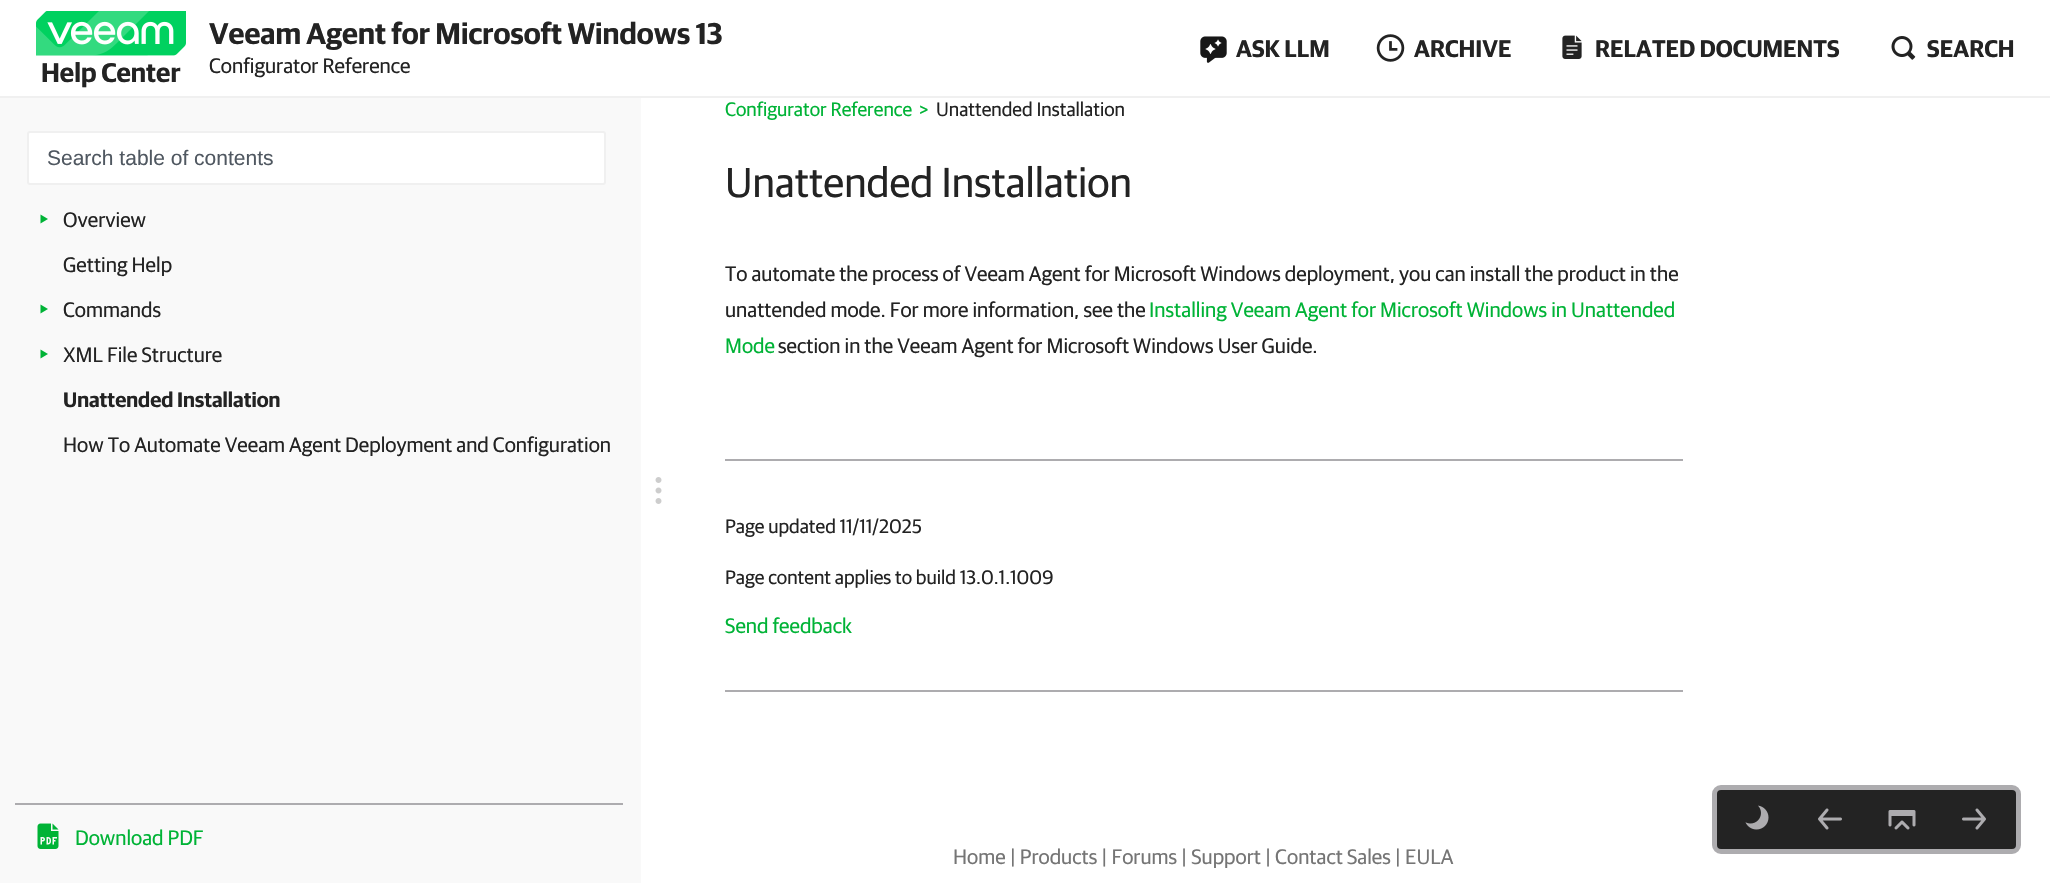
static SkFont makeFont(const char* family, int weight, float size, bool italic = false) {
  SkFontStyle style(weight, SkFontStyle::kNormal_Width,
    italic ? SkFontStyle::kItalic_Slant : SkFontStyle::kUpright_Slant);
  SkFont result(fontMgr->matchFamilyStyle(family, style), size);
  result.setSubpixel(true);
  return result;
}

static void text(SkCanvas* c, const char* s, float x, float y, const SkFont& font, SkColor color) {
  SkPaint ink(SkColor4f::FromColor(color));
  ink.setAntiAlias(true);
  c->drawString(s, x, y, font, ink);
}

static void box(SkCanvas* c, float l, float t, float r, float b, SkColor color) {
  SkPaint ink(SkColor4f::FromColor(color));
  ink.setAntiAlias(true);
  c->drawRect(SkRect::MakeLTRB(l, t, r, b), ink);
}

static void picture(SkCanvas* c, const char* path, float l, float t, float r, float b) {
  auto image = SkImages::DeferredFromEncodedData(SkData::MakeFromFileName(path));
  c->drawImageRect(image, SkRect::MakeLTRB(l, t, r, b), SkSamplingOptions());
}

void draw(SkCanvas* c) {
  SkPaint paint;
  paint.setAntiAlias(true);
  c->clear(0xffffffff);
  box(c, 0, 96, 2050, 98, 0xfff0f0f0);
  picture(c, "img_01.png", 36, 11, 186, 56);
  SkFont face1 = makeFont("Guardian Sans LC", 600, 27);
  text(c, "Help Center", 41, 82, face1, 0xff232323);
  SkFont face2 = makeFont("Guardian Sans LC", 600, 30);
  text(c, "Veeam Agent for Microsoft Windows 13", 209, 44, face2, 0xff232323);
  SkFont face3 = makeFont("Guardian Sans LC", 400, 21);
  text(c, "Configurator Reference", 209, 73, face3, 0xff232323);
  picture(c, "img_02.png", 1200, 36, 1227, 63);
  SkFont face4 = makeFont("Guardian Sans LC", 600, 24);
  text(c, "ASK LLM", 1236, 57, face4, 0xff232323);
  picture(c, "img_03.png", 1376, 34, 1405, 62);
  text(c, "ARCHIVE", 1414, 57, face4, 0xff232323);
  picture(c, "img_04.png", 1562, 35, 1582, 59);
  text(c, "RELATED DOCUMENTS", 1595, 57, face4, 0xff232323);
  picture(c, "img_05.png", 1891, 36, 1916, 60);
  text(c, "SEARCH", 1927, 57, face4, 0xff232323);
  box(c, 0, 98, 641, 883, 0xfff9f9f9);
  paint.setColor(0xffffffff);
  c->drawRoundRect(SkRect::MakeLTRB(28, 132, 605, 184), 2, 2, paint);
  paint.setStyle(SkPaint::kStroke_Style);
  paint.setStrokeWidth(2);
  paint.setColor(0xfff0f0f0);
  c->drawRoundRect(SkRect::MakeLTRB(28, 132, 605, 184), 2, 2, paint);
  SkFont face5 = makeFont("Liberation Sans", 400, 21);
  text(c, "Search table of contents", 47, 165, face5, 0xff505861);
  paint.setStyle(SkPaint::kFill_Style);
  paint.setColor(0xff00b336);
  c->drawPath(SkPathBuilder().moveTo(40.5f, 223.5f).lineTo(40.5f, 214.5f).lineTo(48, 219).close().detach(), paint);
  text(c, "Overview", 63, 227, face3, 0xff232323);
  text(c, "Getting Help", 63, 272, face3, 0xff232323);
  c->drawPath(SkPathBuilder().moveTo(40.5f, 313.5f).lineTo(40.5f, 304.5f).lineTo(48, 309).close().detach(), paint);
  text(c, "Commands", 63, 317, face3, 0xff232323);
  c->drawPath(SkPathBuilder().moveTo(40.5f, 358.5f).lineTo(40.5f, 349.5f).lineTo(48, 354).close().detach(), paint);
  text(c, "XML File Structure", 63, 362, face3, 0xff232323);
  SkFont face6 = makeFont("Guardian Sans LC", 600, 21);
  text(c, "Unattended Installation", 63, 407, face6, 0xff232323);
  text(c, "How To Automate Veeam Agent Deployment and Configuration", 63, 452, face3, 0xff232323);
  box(c, 15, 803, 623, 805, 0xffadacaf);
  picture(c, "img_06.png", 37, 823, 59, 849);
  text(c, "Download PDF", 75, 845, face3, 0xff00b336);
  picture(c, "img_07.png", 655, 477, 662, 504);
  SkFont face7 = makeFont("Guardian Sans LC", 400, 19.5f);
  text(c, "Configurator Reference", 725, 116, face7, 0xff00b336);
  text(c, ">", 919, 116, face7, 0xff00b336);
  text(c, "Unattended Installation", 936, 116, face7, 0xff232323);
  SkFont face8 = makeFont("Guardian Sans LC", 400, 42);
  text(c, "Unattended Installation", 725, 197, face8, 0xff232323);
  text(c, "To automate the process of Veeam Agent for Microsoft Windows deployment, you can install the product in the", 725, 281, face3, 0xff232323);
  text(c, "unattended mode. For more information, see the", 725, 317, face3, 0xff232323);
  text(c, "Installing Veeam Agent for Microsoft Windows in Unattended", 1149, 317, face3, 0xff00b336);
  text(c, "Mode", 725, 353, face3, 0xff00b336);
  text(c, "section in the Veeam Agent for Microsoft Windows User Guide.", 778, 353, face3, 0xff232323);
  box(c, 725, 459, 1683, 461, 0xffadacaf);
  text(c, "Page updated 11/11/2025", 725, 533, face7, 0xff232323);
  text(c, "Page content applies to build 13.0.1.1009", 725, 584, face7, 0xff232323);
  text(c, "Send feedback", 725, 633, face3, 0xff00b336);
  box(c, 725, 690, 1683, 692, 0xffadacaf);
  text(c, "Home | Products | Forums | Support | Contact Sales | EULA", 953, 864, face3, 0xff757575);
  paint.setColor(0xff232323);
  c->drawRoundRect(SkRect::MakeLTRB(1714.5f, 787.5f, 2018.5f, 851.5f), 6.5f, 6.5f, paint);
  paint.setStyle(SkPaint::kStroke_Style);
  paint.setStrokeWidth(5);
  paint.setColor(0xffadacaf);
  c->drawRoundRect(SkRect::MakeLTRB(1714.5f, 787.5f, 2018.5f, 851.5f), 6.5f, 6.5f, paint);
  picture(c, "img_08.png", 1745, 805, 1769, 830);
  picture(c, "img_09.png", 1818, 808, 1842, 830);
  picture(c, "img_10.png", 1888, 810, 1916, 830);
  picture(c, "img_11.png", 1962, 808, 1986, 830);
}
